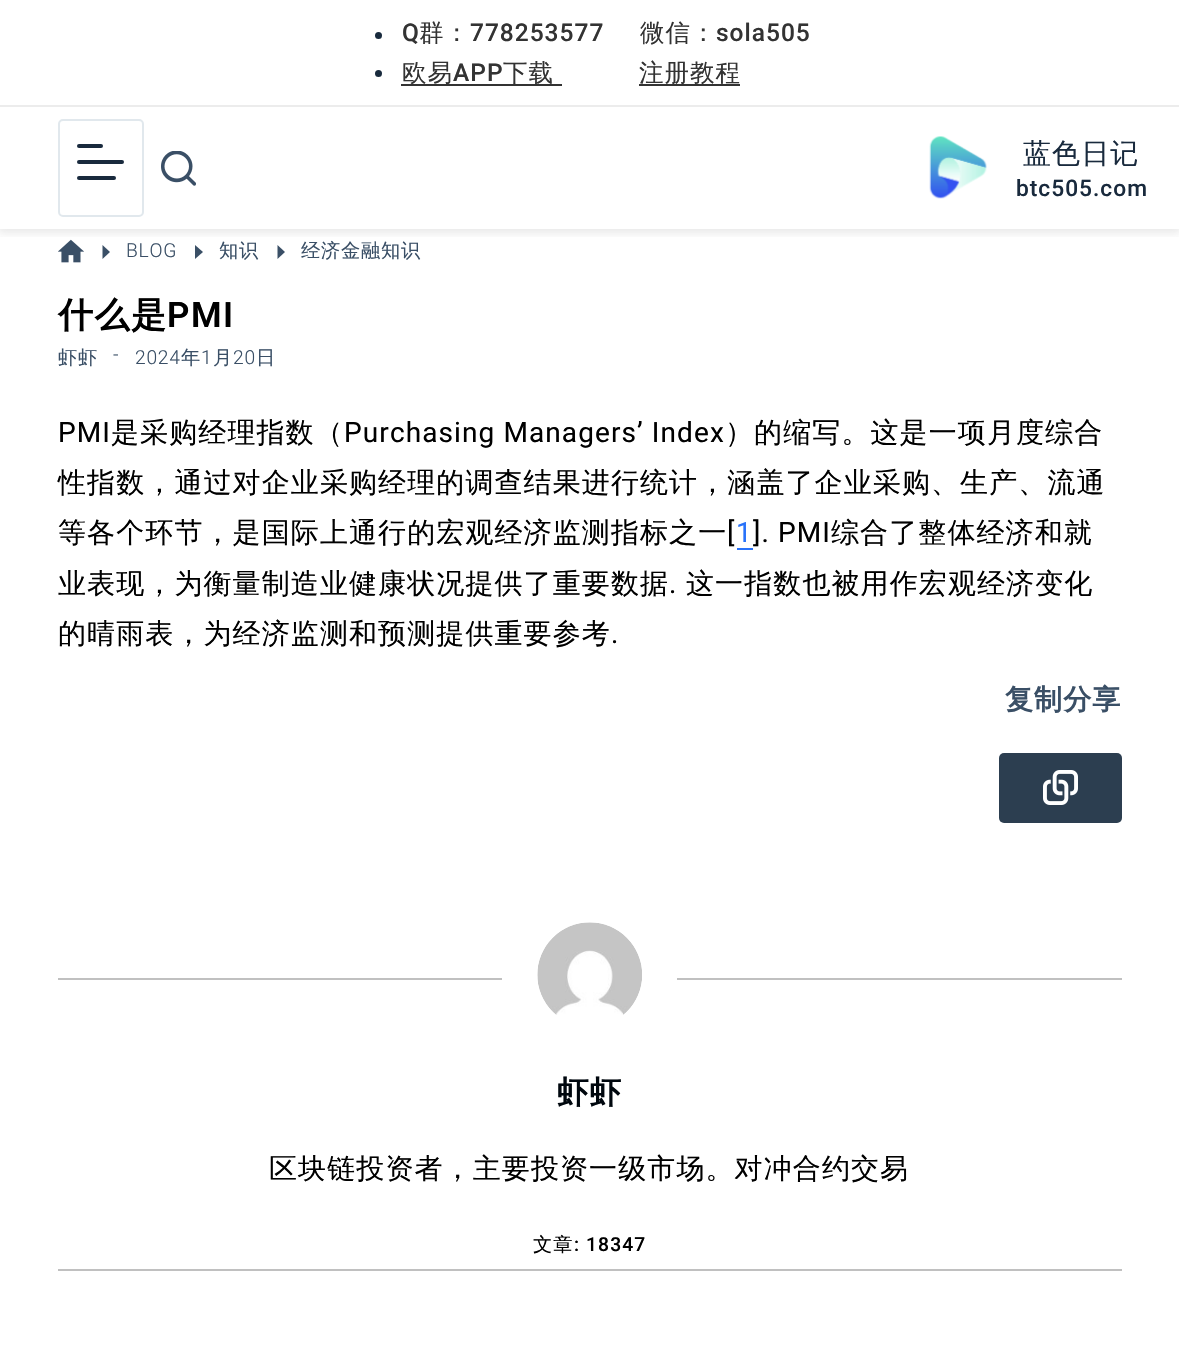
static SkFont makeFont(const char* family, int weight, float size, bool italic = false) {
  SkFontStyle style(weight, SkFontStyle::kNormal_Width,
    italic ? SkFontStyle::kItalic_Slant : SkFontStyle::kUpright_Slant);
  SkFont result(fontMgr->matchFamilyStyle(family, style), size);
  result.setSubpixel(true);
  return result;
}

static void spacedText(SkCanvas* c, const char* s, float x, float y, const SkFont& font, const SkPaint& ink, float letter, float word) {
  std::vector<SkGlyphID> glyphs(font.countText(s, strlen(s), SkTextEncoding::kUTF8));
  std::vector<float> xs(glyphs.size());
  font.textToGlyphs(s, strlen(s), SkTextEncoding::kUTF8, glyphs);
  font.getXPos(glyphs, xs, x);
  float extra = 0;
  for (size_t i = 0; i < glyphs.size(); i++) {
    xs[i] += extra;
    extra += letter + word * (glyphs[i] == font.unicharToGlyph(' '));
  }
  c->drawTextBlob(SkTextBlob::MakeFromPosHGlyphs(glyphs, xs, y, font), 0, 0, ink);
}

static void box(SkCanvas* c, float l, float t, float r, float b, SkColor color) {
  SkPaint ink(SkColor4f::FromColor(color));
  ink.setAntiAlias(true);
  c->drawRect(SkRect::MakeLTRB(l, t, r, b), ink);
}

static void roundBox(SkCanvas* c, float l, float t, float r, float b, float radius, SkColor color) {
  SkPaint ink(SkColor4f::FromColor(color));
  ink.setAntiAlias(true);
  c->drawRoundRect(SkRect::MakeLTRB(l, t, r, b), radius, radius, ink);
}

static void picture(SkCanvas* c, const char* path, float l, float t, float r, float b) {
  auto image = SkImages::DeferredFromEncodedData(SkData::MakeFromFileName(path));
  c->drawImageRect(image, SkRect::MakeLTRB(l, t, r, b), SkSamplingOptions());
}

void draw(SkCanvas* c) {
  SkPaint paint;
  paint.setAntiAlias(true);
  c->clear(0xffffffff);
  picture(c, "img_03.png", 58, 239, 84, 263);
  paint.setColor(0xff3a4f66);
  c->drawPath(SkPathBuilder().moveTo(102.5f, 245).lineTo(110, 252).lineTo(102.5f, 259).close().detach(), paint);
  c->drawPath(SkPathBuilder().moveTo(195, 245).lineTo(203, 252).lineTo(195, 259).close().detach(), paint);
  c->drawPath(SkPathBuilder().moveTo(277.5f, 245).lineTo(285, 252).lineTo(277.5f, 259).close().detach(), paint);
  c->save();
  c->clipRect(SkRect::MakeLTRB(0, 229, 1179, 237));
  paint.setColor(0x1c2e2e2e);
  paint.setMaskFilter(SkMaskFilter::MakeBlur(kNormal_SkBlurStyle, 4.5f));
  c->drawRect(SkRect::MakeLTRB(-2, 105, 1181, 233), paint);
  paint.setMaskFilter(nullptr);
  c->restore();
  box(c, 0, 100, 1179, 105, 0xffffffff);
  paint.setColor(0xff192a3d);
  c->drawCircle(378.5f, 35.5f, 3.5f, paint);
  SkFont face1 = makeFont("Roboto", 500, 24.5f);
  paint.setColor(0xff333333);
  spacedText(c, "Q", 402, 41, face1, paint, 1, 0);
  SkFont face2 = makeFont("WenQuanYi Zen Hei", 500, 24.5f);
  spacedText(c, "群：", 419, 41, face2, paint, 1, 0);
  spacedText(c, "778253577", 470, 41, face1, paint, 1, 0);
  spacedText(c, "微信：", 640, 41, face2, paint, 1, 0);
  spacedText(c, "sola505", 716, 41, face1, paint, 1, 0);
  paint.setColor(0xff192a3d);
  c->drawCircle(378.5f, 73.5f, 3.5f, paint);
  box(c, 401, 84, 562, 86, 0xff333333);
  paint.setColor(0xff333333);
  spacedText(c, "欧易", 402, 81, face2, paint, 1, 0);
  spacedText(c, "APP", 453, 81, face1, paint, 1, 0);
  spacedText(c, "下载", 503, 81, face2, paint, 1, 0);
  box(c, 639, 84, 740, 86, 0xff333333);
  spacedText(c, "注册教程", 639, 81, face2, paint, 1, 0);
  box(c, 0, 105, 1179, 107, 0xffececec);
  paint.setStyle(SkPaint::kStroke_Style);
  paint.setStrokeWidth(2);
  paint.setColor(0xffe1e8ed);
  c->drawRoundRect(SkRect::MakeLTRB(59, 120, 143, 216), 4, 4, paint);
  roundBox(c, 77, 144, 103, 148, 2, 0xff192a3d);
  roundBox(c, 77, 160, 124, 164, 2, 0xff192a3d);
  roundBox(c, 77, 176, 116, 180, 2, 0xff192a3d);
  picture(c, "img_01.png", 161, 151, 196, 186);
  picture(c, "img_02.png", 929, 136, 987, 199);
  SkFont face3 = makeFont("WenQuanYi Zen Hei", 500, 28);
  paint.setStyle(SkPaint::kFill_Style);
  paint.setColor(0xff192a3d);
  spacedText(c, "蓝色日记", 1023, 163, face3, paint, 1.1f, 0);
  SkFont face4 = makeFont("Roboto", 500, 22.75f);
  spacedText(c, "btc505.com", 1016, 196, face4, paint, 1, 0);
  SkFont face5 = makeFont("Roboto", 300, 19.25f);
  paint.setColor(0xff3a4f66);
  spacedText(c, "BLOG", 126, 257, face5, paint, 0.75f, 0);
  SkFont face6 = makeFont("WenQuanYi Zen Hei", 500, 19.25f);
  spacedText(c, "知识", 219, 257, face6, paint, 0.75f, 0);
  spacedText(c, "经济金融知识", 301, 257, face6, paint, 0.75f, 0);
  SkFont face7 = makeFont("WenQuanYi Zen Hei", 700, 35);
  paint.setColor(0xff000000);
  spacedText(c, "什么是", 58, 327, face7, paint, 1.5f, 0);
  SkFont face8 = makeFont("Roboto", 600, 35);
  spacedText(c, "PMI", 167, 327, face8, paint, 1.5f, 0);
  paint.setColor(0xff3a4f66);
  spacedText(c, "虾虾", 58, 364, face6, paint, 0.75f, 0);
  spacedText(c, "-", 113, 361, face5, paint, 0.75f, 0);
  spacedText(c, "2024", 135, 364, face5, paint, 0.75f, 0);
  spacedText(c, "年", 181, 364, face6, paint, 0.75f, 0);
  spacedText(c, "1", 201, 364, face5, paint, 0.75f, 0);
  spacedText(c, "月", 213, 364, face6, paint, 0.75f, 0);
  spacedText(c, "20", 233, 364, face5, paint, 0.75f, 0);
  spacedText(c, "日", 256, 364, face6, paint, 0.75f, 0);
  SkFont face9 = makeFont("Roboto", 400, 28);
  paint.setColor(0xff000000);
  spacedText(c, "PMI", 58, 442, face9, paint, 1.1f, 0);
  spacedText(c, "是采购经理指数（", 111, 442, face3, paint, 1.1f, 0);
  spacedText(c, "Purchasing Managers’ Index", 344, 442, face9, paint, 1.1f, 0);
  spacedText(c, "）的缩写。这是一项月度综合", 725, 442, face3, paint, 1.1f, 0);
  spacedText(c, "性指数，通过对企业采购经理的调查结果进行统计，涵盖了企业采购、生产、流通", 58, 492, face3, paint, 1.1f, 0);
  spacedText(c, "等各个环节，是国际上通行的宏观经济监测指标之一", 58, 542, face3, paint, 1.1f, 0);
  spacedText(c, "[", 727, 542, face9, paint, 1.1f, 0);
  paint.setColor(0xff2872fa);
  spacedText(c, "1", 736, 542, face9, paint, 1.1f, 0);
  box(c, 737, 548, 753, 550, 0xff2872fa);
  paint.setColor(0xff000000);
  spacedText(c, "]. PMI", 753, 542, face9, paint, 1.1f, 0);
  spacedText(c, "综合了整体经济和就", 831, 542, face3, paint, 1.1f, 0);
  spacedText(c, "业表现，为衡量制造业健康状况提供了重要数据", 58, 593, face3, paint, 1.1f, 0);
  spacedText(c, ".", 669, 593, face9, paint, 1.1f, 0);
  spacedText(c, "这一指数也被用作宏观经济变化", 686, 593, face3, paint, 1.1f, 0);
  spacedText(c, "的晴雨表，为经济监测和预测提供重要参考", 58, 643, face3, paint, 1.1f, 0);
  spacedText(c, ".", 611, 643, face9, paint, 1.1f, 0);
  SkFont face10 = makeFont("WenQuanYi Zen Hei", 700, 28);
  paint.setColor(0xff3a4f66);
  spacedText(c, "复制分享", 1005, 709, face10, paint, 1.1f, 0);
  roundBox(c, 999, 753, 1122, 823, 5, 0xff2c3e50);
  picture(c, "img_04.png", 1043, 770, 1078, 805);
  box(c, 58, 1269, 1122, 1271, 0xffc0c0c0);
  box(c, 58, 978, 502, 980, 0xffc0c0c0);
  picture(c, "img_05.png", 537, 922, 642, 1015);
  box(c, 677, 978, 1122, 980, 0xffc0c0c0);
  SkFont face11 = makeFont("WenQuanYi Zen Hei", 700, 31.5f);
  paint.setColor(0xff00070e);
  spacedText(c, "虾虾", 557, 1103, face11, paint, 1, 0);
  paint.setColor(0xff000000);
  spacedText(c, "区块链投资者，主要投资一级市场。对冲合约交易", 269, 1178, face3, paint, 1.1f, 0);
  spacedText(c, "文章", 533, 1251, face6, paint, 1.1f, 0);
  SkFont face12 = makeFont("Roboto", 500, 19.25f);
  spacedText(c, ": 18347", 574, 1251, face12, paint, 1.1f, 0);
}
